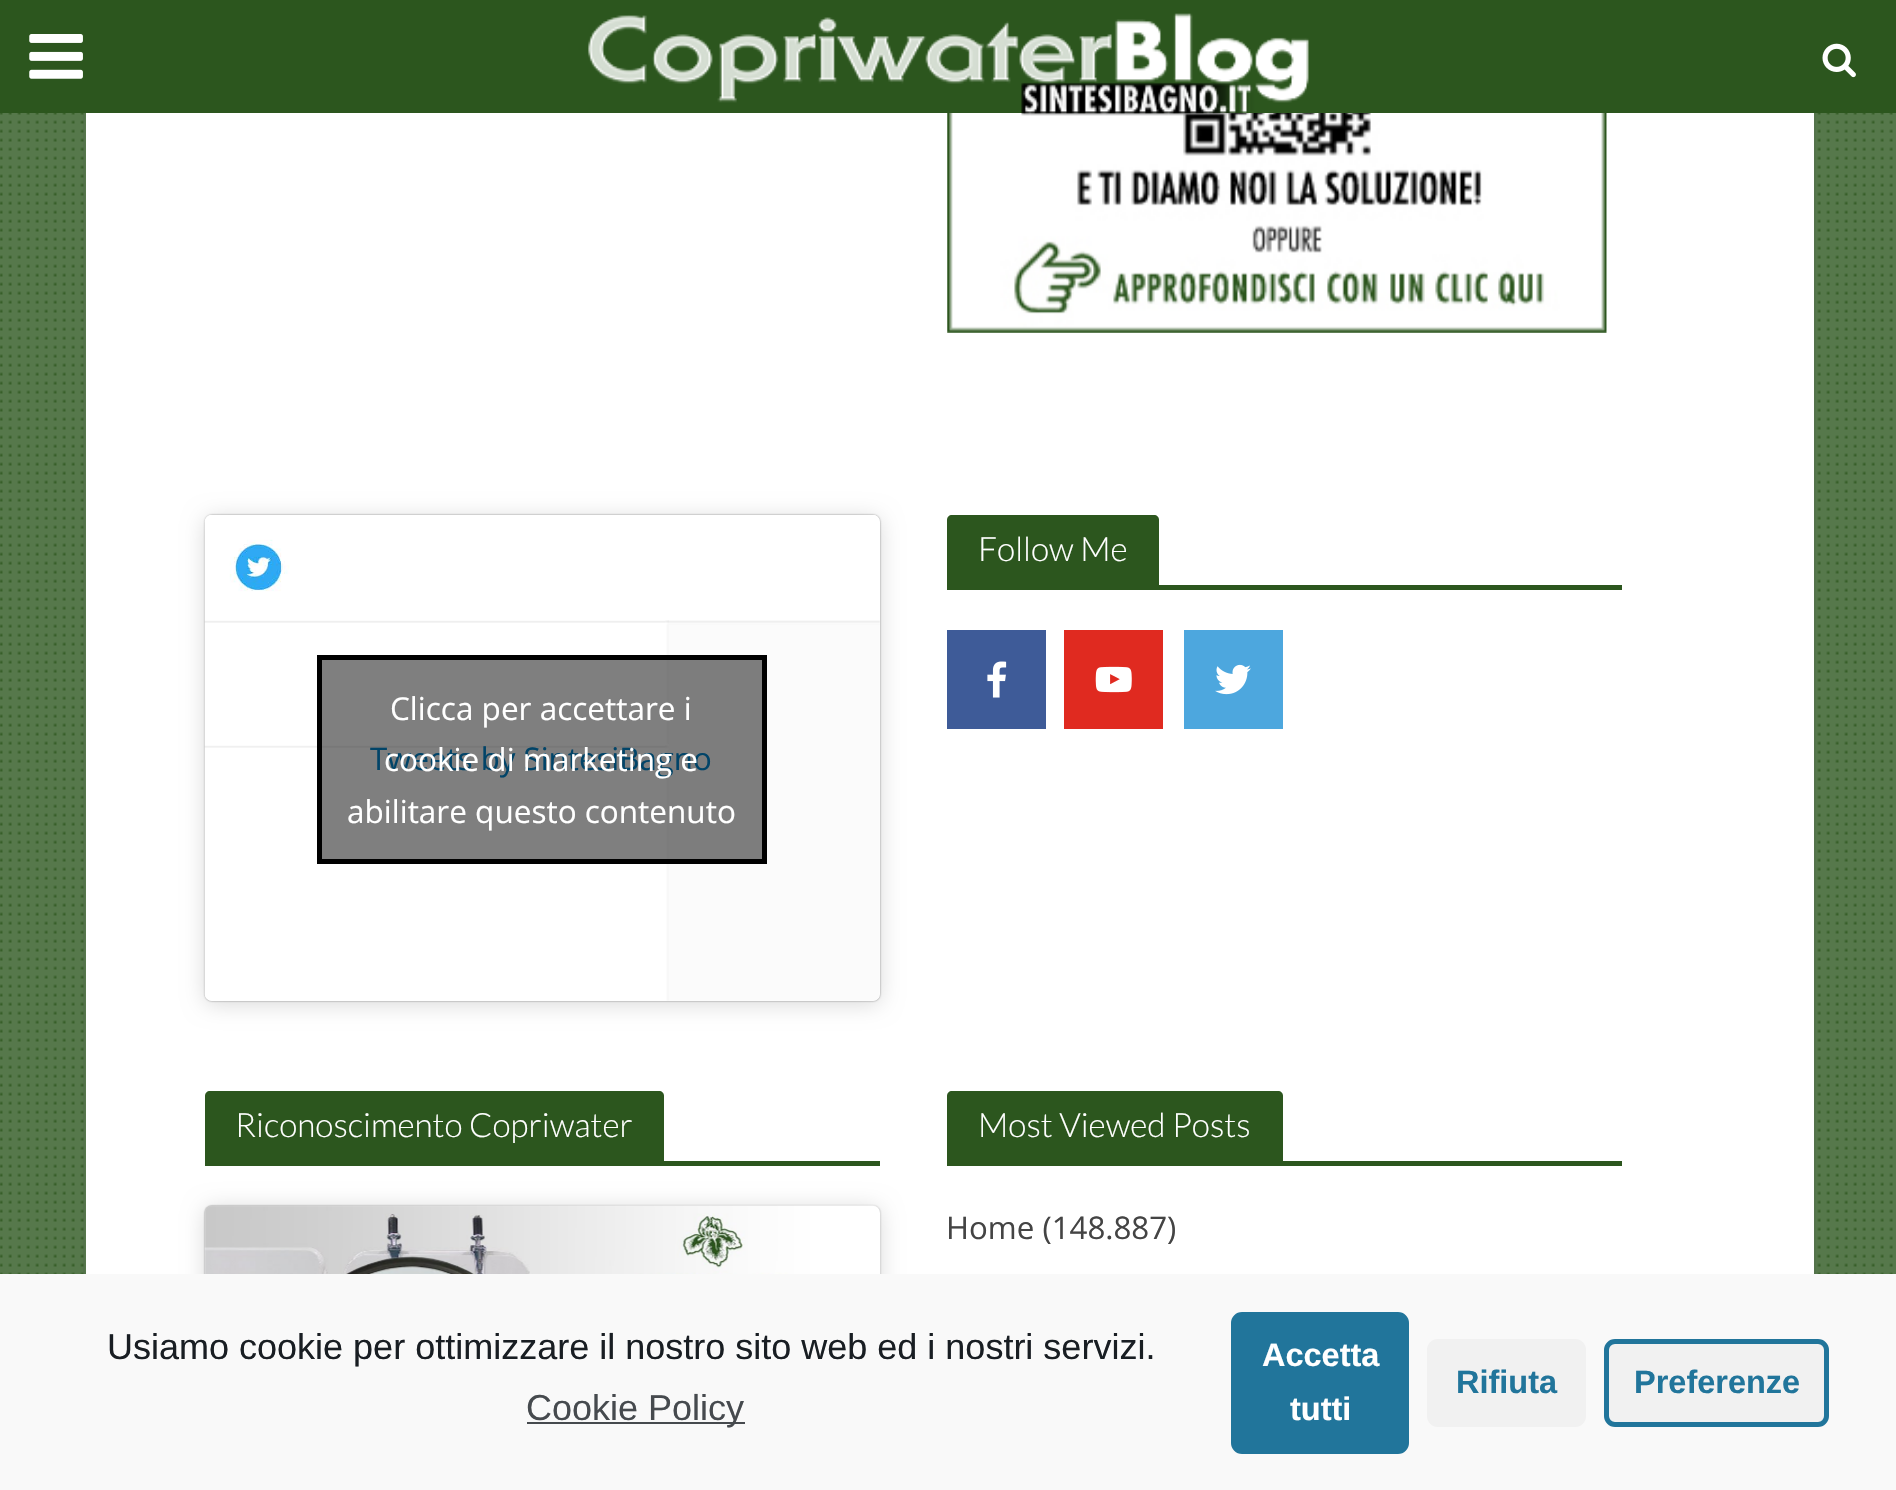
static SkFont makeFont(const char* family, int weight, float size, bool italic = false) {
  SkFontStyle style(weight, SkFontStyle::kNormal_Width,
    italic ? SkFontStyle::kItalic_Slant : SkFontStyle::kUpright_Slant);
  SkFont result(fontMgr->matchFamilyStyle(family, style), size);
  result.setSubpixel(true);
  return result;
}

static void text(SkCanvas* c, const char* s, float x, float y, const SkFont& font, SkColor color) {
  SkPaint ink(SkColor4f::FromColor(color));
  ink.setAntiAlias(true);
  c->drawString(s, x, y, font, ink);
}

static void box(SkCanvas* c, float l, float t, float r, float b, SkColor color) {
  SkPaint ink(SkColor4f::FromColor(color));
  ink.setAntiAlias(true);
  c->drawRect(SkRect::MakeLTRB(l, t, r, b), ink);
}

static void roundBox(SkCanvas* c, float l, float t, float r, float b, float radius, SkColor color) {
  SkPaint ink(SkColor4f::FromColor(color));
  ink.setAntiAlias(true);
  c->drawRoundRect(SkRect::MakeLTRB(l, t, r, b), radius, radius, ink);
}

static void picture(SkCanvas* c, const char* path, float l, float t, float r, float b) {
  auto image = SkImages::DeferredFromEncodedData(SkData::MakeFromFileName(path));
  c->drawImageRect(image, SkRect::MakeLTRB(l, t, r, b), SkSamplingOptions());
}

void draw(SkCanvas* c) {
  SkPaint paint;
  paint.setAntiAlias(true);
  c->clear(0xff56784b);
  picture(c, "img_01.png", 0, 113, 1893, 1274);
  paint.setStyle(SkPaint::kStroke_Style);
  paint.setStrokeWidth(2);
  paint.setColor(0x1a444444);
  c->drawRect(SkRect::MakeLTRB(84, -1, 1815, 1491), paint);
  box(c, 0, 0, 1896, 113, 0xff2c561e);
  picture(c, "img_02.png", 29, 34, 83, 79);
  box(c, 86, 113, 1814, 1274, 0xffffffff);
  picture(c, "img_05.png", 947, 113, 1607, 333);
  picture(c, "img_03.png", 588, 13, 1309, 116);
  picture(c, "img_04.png", 1822, 43, 1856, 78);
  paint.setStyle(SkPaint::kFill_Style);
  paint.setColor(0xff2c561e);
  c->drawPath(SkPathBuilder().moveTo(952, 515).lineTo(1154, 515).cubicTo(1157, 515, 1159, 517, 1159, 520).lineTo(1159, 585).lineTo(947, 585).lineTo(947, 520).cubicTo(947, 517, 949, 515, 952, 515).close().detach(), paint);
  SkFont face1 = makeFont("Lato", 300, 33.4f);
  text(c, "Follow Me", 978, 561, face1, 0xffffffff);
  box(c, 947, 585, 1622, 590, 0xff2c561e);
  box(c, 947, 630, 1046, 729, 0xff3e5b98);
  picture(c, "img_06.png", 987, 661, 1007, 698);
  box(c, 1064, 630, 1163, 729, 0xffe02a20);
  picture(c, "img_07.png", 1095, 666, 1132, 693);
  box(c, 1184, 630, 1283, 729, 0xff4da7de);
  picture(c, "img_08.png", 1215, 664, 1251, 695);
  paint.setColor(0x26000000);
  paint.setMaskFilter(SkMaskFilter::MakeBlur(kNormal_SkBlurStyle, 11));
  c->drawRoundRect(SkRect::MakeLTRB(205, 518, 880, 1004), 7, 7, paint);
  paint.setMaskFilter(nullptr);
  paint.setColor(0x80000000);
  paint.setMaskFilter(SkMaskFilter::MakeBlur(kNormal_SkBlurStyle, 1));
  c->drawRoundRect(SkRect::MakeLTRB(205, 515, 880, 1001), 7, 7, paint);
  paint.setMaskFilter(nullptr);
  roundBox(c, 205, 515, 880, 1001, 7, 0xffffffff);
  picture(c, "img_09.png", 204, 515, 880, 1001);
  SkFont face2 = makeFont("Open Sans", 400, 31.25f);
  text(c, "Tweets by SintesiBagno", 370, 770, face2, 0xff0288d1);
  c->drawRect(SkRect::MakeLTRB(319.5f, 657.5f, 764.5f, 861.5f), paint);
  paint.setStyle(SkPaint::kStroke_Style);
  paint.setStrokeWidth(5);
  paint.setColor(0xff000000);
  c->drawRect(SkRect::MakeLTRB(319.5f, 657.5f, 764.5f, 861.5f), paint);
  SkFont face3 = makeFont("Open Sans", 400, 31.5f);
  text(c, "Clicca per accettare i", 390, 720, face3, 0xffffffff);
  text(c, "cookie di marketing e", 384, 771, face3, 0xffffffff);
  text(c, "abilitare questo contenuto", 347, 823, face3, 0xffffffff);
  paint.setStyle(SkPaint::kFill_Style);
  paint.setColor(0xff2c561e);
  c->drawPath(SkPathBuilder().moveTo(210, 1091).lineTo(659, 1091).cubicTo(662, 1091, 664, 1093, 664, 1096).lineTo(664, 1161).lineTo(205, 1161).lineTo(205, 1096).cubicTo(205, 1093, 207, 1091, 210, 1091).close().detach(), paint);
  text(c, "Riconoscimento Copriwater", 235, 1137, face1, 0xffffffff);
  box(c, 205, 1161, 880, 1166, 0xff2c561e);
  paint.setColor(0x26000000);
  paint.setMaskFilter(SkMaskFilter::MakeBlur(kNormal_SkBlurStyle, 11));
  c->drawRoundRect(SkRect::MakeLTRB(205, 1208, 880, 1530), 7, 7, paint);
  paint.setMaskFilter(nullptr);
  paint.setColor(0x80000000);
  paint.setMaskFilter(SkMaskFilter::MakeBlur(kNormal_SkBlurStyle, 1));
  c->drawRoundRect(SkRect::MakeLTRB(205, 1206, 880, 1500), 7, 7, paint);
  paint.setMaskFilter(nullptr);
  roundBox(c, 205, 1206, 880, 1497, 7, 0xffffffff);
  picture(c, "img_10.png", 204, 1205, 881, 1274);
  paint.setColor(0xff2c561e);
  c->drawPath(SkPathBuilder().moveTo(952, 1091).lineTo(1278, 1091).cubicTo(1281, 1091, 1283, 1093, 1283, 1096).lineTo(1283, 1161).lineTo(947, 1161).lineTo(947, 1096).cubicTo(947, 1093, 949, 1091, 952, 1091).close().detach(), paint);
  text(c, "Most Viewed Posts", 978, 1137, face1, 0xffffffff);
  box(c, 947, 1161, 1622, 1166, 0xff2c561e);
  text(c, "Home (148.887)", 946, 1239, face2, 0xff444444);
  box(c, 0, 1274, 1896, 1490, 0xfff9f9f9);
  SkFont face4 = makeFont("Liberation Sans", 400, 36);
  text(c, "Usiamo cookie per ottimizzare il nostro sito web ed i nostri servizi.", 107, 1359, face4, 0xff191e23);
  box(c, 527, 1422, 745, 1424, 0xff464a4e);
  text(c, "Cookie Policy", 526, 1420, face4, 0xff464a4e);
  paint.setColor(0xff21759b);
  c->drawRoundRect(SkRect::MakeLTRB(1233.5f, 1314.5f, 1406.5f, 1451.5f), 8.5f, 8.5f, paint);
  paint.setStyle(SkPaint::kStroke_Style);
  c->drawRoundRect(SkRect::MakeLTRB(1233.5f, 1314.5f, 1406.5f, 1451.5f), 8.5f, 8.5f, paint);
  SkFont face5 = makeFont("Liberation Sans", 700, 32.5f);
  text(c, "Accetta", 1262, 1366, face5, 0xffffffff);
  text(c, "tutti", 1290, 1420, face5, 0xffffffff);
  roundBox(c, 1427, 1339, 1586, 1427, 11, 0xfff1f1f1);
  text(c, "Rifiuta", 1456, 1393, face5, 0xff21759b);
  paint.setStyle(SkPaint::kFill_Style);
  paint.setColor(0xfff1f1f1);
  c->drawRoundRect(SkRect::MakeLTRB(1606.5f, 1341.5f, 1826.5f, 1424.5f), 8.5f, 8.5f, paint);
  paint.setStyle(SkPaint::kStroke_Style);
  paint.setColor(0xff21759b);
  c->drawRoundRect(SkRect::MakeLTRB(1606.5f, 1341.5f, 1826.5f, 1424.5f), 8.5f, 8.5f, paint);
  text(c, "Preferenze", 1634, 1393, face5, 0xff21759b);
}
